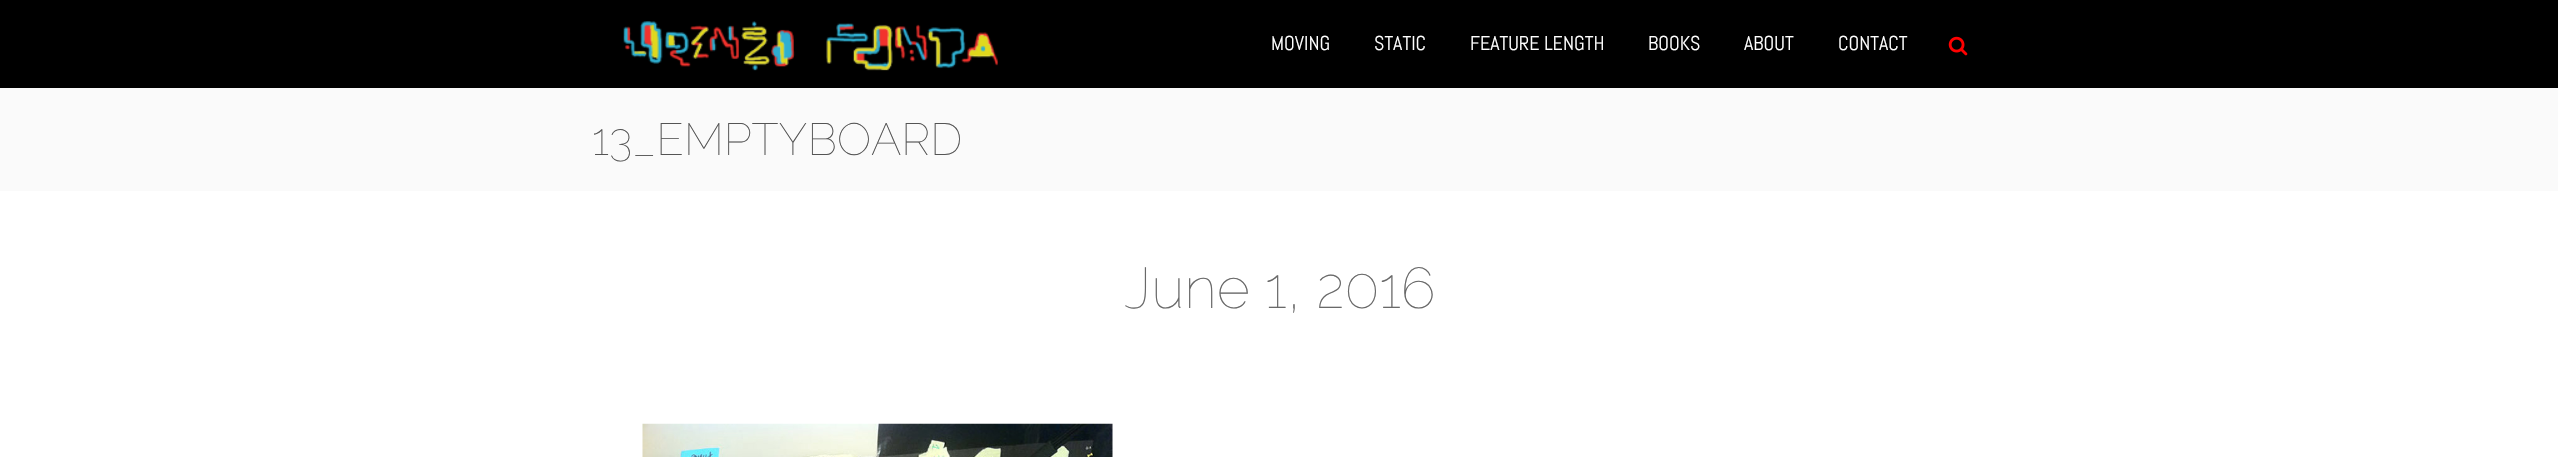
static SkFont makeFont(const char* family, int weight, float size, bool italic = false) {
  SkFontStyle style(weight, SkFontStyle::kNormal_Width,
    italic ? SkFontStyle::kItalic_Slant : SkFontStyle::kUpright_Slant);
  SkFont result(fontMgr->matchFamilyStyle(family, style), size);
  result.setSubpixel(true);
  return result;
}

static void text(SkCanvas* c, const char* s, float x, float y, const SkFont& font, SkColor color) {
  SkPaint ink(SkColor4f::FromColor(color));
  ink.setAntiAlias(true);
  c->drawString(s, x, y, font, ink);
}

static void box(SkCanvas* c, float l, float t, float r, float b, SkColor color) {
  SkPaint ink(SkColor4f::FromColor(color));
  ink.setAntiAlias(true);
  c->drawRect(SkRect::MakeLTRB(l, t, r, b), ink);
}

static void picture(SkCanvas* c, const char* path, float l, float t, float r, float b) {
  auto image = SkImages::DeferredFromEncodedData(SkData::MakeFromFileName(path));
  c->drawImageRect(image, SkRect::MakeLTRB(l, t, r, b), SkSamplingOptions());
}

void draw(SkCanvas* c) {
  SkPaint paint;
  paint.setAntiAlias(true);
  c->clear(0xffffffff);
  box(c, 0, 0, 2558, 88, 0xff000000);
  picture(c, "img_01.png", 623, 21, 998, 71);
  SkFont face1 = makeFont("Abel", 400, 20);
  text(c, "MOVING", 1271, 50, face1, 0xffffffff);
  text(c, "STATIC", 1374, 50, face1, 0xffffffff);
  text(c, "FEATURE LENGTH", 1470, 50, face1, 0xffffffff);
  text(c, "BOOKS", 1648, 50, face1, 0xffffffff);
  text(c, "ABOUT", 1744, 50, face1, 0xffffffff);
  text(c, "CONTACT", 1838, 50, face1, 0xffffffff);
  picture(c, "img_02.png", 1948, 36, 1968, 56);
  box(c, 0, 88, 2558, 191, 0xfffafafa);
  SkFont face2 = makeFont("Raleway", 100, 45);
  text(c, "13_EMPTYBOARD", 592, 155, face2, 0xff545454);
  SkFont face3 = makeFont("Raleway", 100, 57.5f);
  text(c, "June 1, 2016", 1124, 308, face3, 0xff696969);
  picture(c, "img_03.png", 642, 423, 1113, 457);
}
